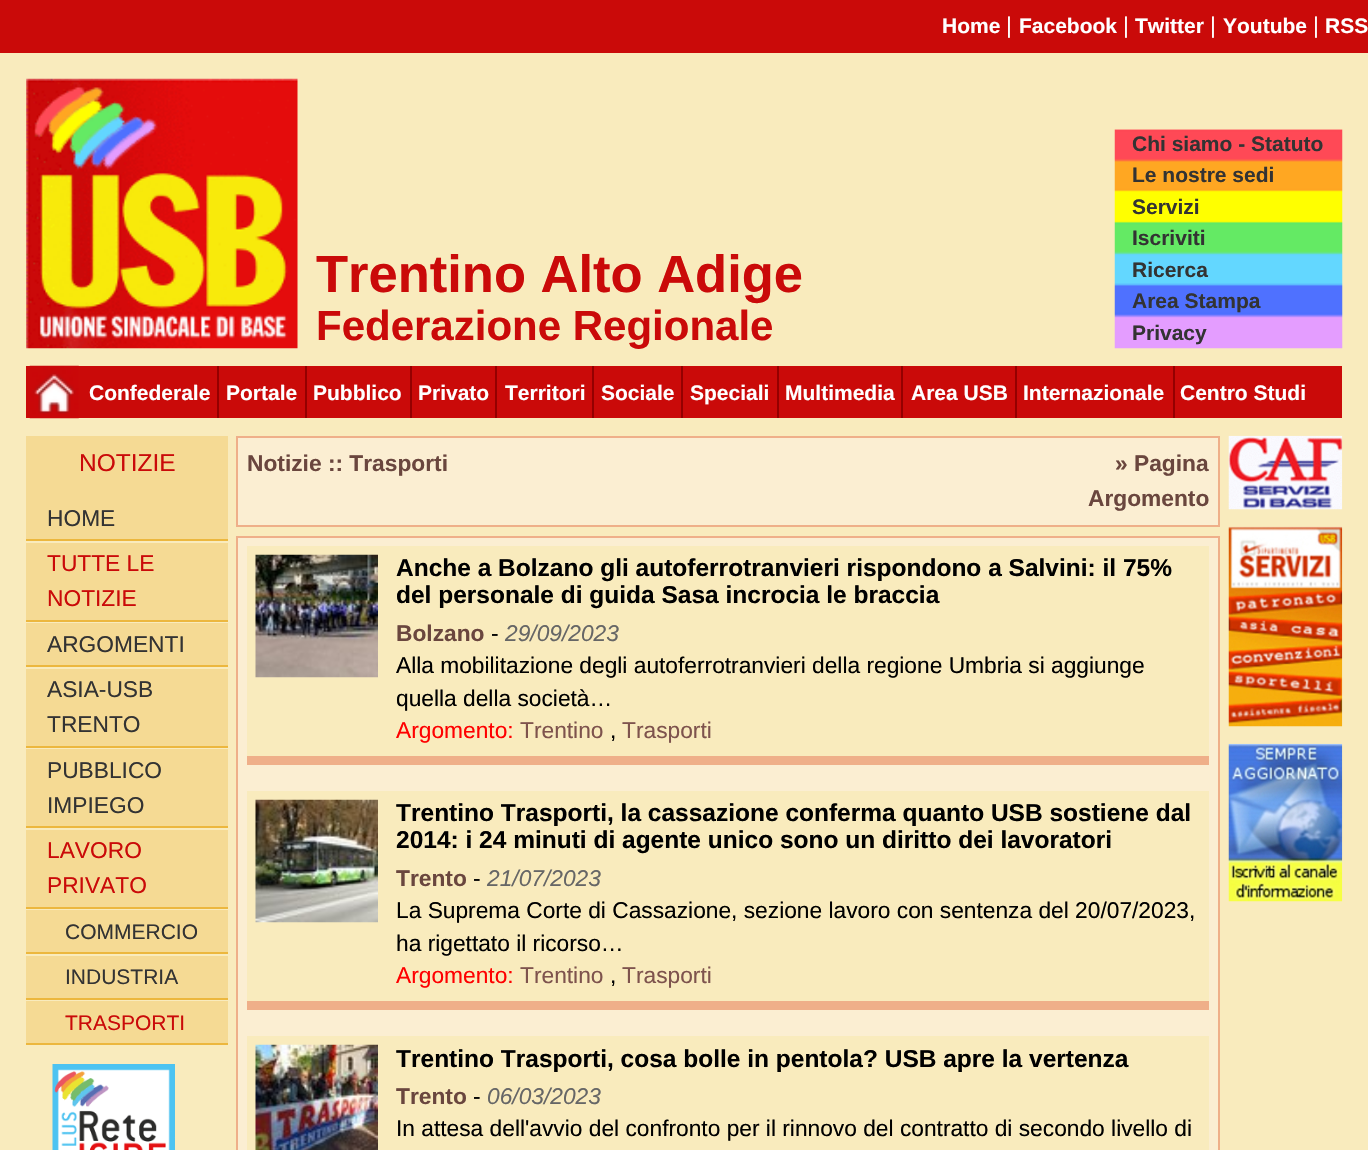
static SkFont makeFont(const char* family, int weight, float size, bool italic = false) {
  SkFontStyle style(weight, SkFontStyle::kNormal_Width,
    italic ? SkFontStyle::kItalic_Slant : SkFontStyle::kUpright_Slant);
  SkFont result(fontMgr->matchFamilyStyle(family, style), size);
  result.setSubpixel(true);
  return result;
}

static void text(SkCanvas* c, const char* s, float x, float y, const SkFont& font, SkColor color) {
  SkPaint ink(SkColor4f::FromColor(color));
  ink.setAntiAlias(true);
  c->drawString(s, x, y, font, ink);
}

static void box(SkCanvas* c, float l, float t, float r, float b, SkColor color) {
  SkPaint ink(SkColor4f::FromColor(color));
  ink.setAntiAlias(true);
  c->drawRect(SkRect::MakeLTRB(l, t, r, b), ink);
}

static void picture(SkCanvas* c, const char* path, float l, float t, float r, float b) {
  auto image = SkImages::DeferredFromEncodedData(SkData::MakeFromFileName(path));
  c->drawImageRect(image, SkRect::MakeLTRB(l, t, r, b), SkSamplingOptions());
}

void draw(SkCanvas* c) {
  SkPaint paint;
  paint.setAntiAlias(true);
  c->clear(0xffffffff);
  picture(c, "img_01.png", 0, 0, 1368, 53);
  SkFont face1 = makeFont("Liberation Sans", 700, 21);
  text(c, "Home", 942, 33, face1, 0xffffffff);
  SkFont face2 = makeFont("Liberation Sans", 400, 22.75f);
  text(c, "|", 1006, 33, face2, 0xffffffff);
  text(c, "Facebook", 1019, 33, face1, 0xffffffff);
  text(c, "|", 1123, 33, face2, 0xffffffff);
  text(c, "Twitter", 1135, 33, face1, 0xffffffff);
  text(c, "|", 1210, 33, face2, 0xffffffff);
  text(c, "Youtube", 1223, 33, face1, 0xffffffff);
  text(c, "|", 1313, 33, face2, 0xffffffff);
  text(c, "RSS", 1325, 33, face1, 0xffffffff);
  box(c, 0, 53, 1368, 1150, 0xfff9ebbd);
  picture(c, "img_02.png", 26, 78, 298, 349);
  SkFont face3 = makeFont("Liberation Sans", 700, 52.5f);
  text(c, "Trentino Alto Adige", 316, 292, face3, 0xffca0a09);
  SkFont face4 = makeFont("Liberation Sans", 700, 42);
  text(c, "Federazione Regionale", 316, 340, face4, 0xffca0a09);
  picture(c, "img_03.png", 1114, 129, 1343, 349);
  text(c, "Chi siamo - Statuto", 1132, 151, face1, 0xff333333);
  text(c, "Le nostre sedi", 1132, 182, face1, 0xff333333);
  text(c, "Servizi", 1132, 214, face1, 0xff333333);
  text(c, "Iscriviti", 1132, 245, face1, 0xff333333);
  text(c, "Ricerca", 1132, 277, face1, 0xff333333);
  text(c, "Area Stampa", 1132, 308, face1, 0xff333333);
  text(c, "Privacy", 1132, 340, face1, 0xff333333);
  box(c, 26, 366, 1342, 418, 0xffca0a09);
  picture(c, "img_04.png", 29, 365, 79, 419);
  box(c, 217, 366, 219, 418, 0xff940000);
  text(c, "Confederale", 89, 400, face1, 0xffffffff);
  box(c, 305, 366, 307, 418, 0xff940000);
  text(c, "Portale", 226, 400, face1, 0xffffffff);
  box(c, 410, 366, 412, 418, 0xff940000);
  text(c, "Pubblico", 313, 400, face1, 0xffffffff);
  box(c, 495, 366, 497, 418, 0xff940000);
  text(c, "Privato", 418, 400, face1, 0xffffffff);
  box(c, 592, 366, 594, 418, 0xff940000);
  text(c, "Territori", 505, 400, face1, 0xffffffff);
  box(c, 681, 366, 683, 418, 0xff940000);
  text(c, "Sociale", 601, 400, face1, 0xffffffff);
  box(c, 777, 366, 779, 418, 0xff940000);
  text(c, "Speciali", 690, 400, face1, 0xffffffff);
  box(c, 901, 366, 903, 418, 0xff940000);
  text(c, "Multimedia", 785, 400, face1, 0xffffffff);
  box(c, 1015, 366, 1017, 418, 0xff940000);
  text(c, "Area USB", 911, 400, face1, 0xffffffff);
  box(c, 1173, 366, 1175, 418, 0xff940000);
  text(c, "Internazionale", 1023, 400, face1, 0xffffffff);
  text(c, "Centro Studi", 1180, 400, face1, 0xffffffff);
  box(c, 26, 436, 228, 539, 0xfff5da94);
  SkFont face5 = makeFont("Liberation Sans", 400, 24.5f);
  text(c, "NOTIZIE", 79, 471, face5, 0xffca0a09);
  box(c, 26, 539, 228, 541, 0xffecb73e);
  text(c, "HOME", 47, 526, face2, 0xff333333);
  box(c, 26, 620, 228, 622, 0xffecb73e);
  box(c, 26, 543, 228, 620, 0xfff5da94);
  text(c, "TUTTE LE", 47, 571, face2, 0xffca0a09);
  text(c, "NOTIZIE", 47, 606, face2, 0xffca0a09);
  box(c, 26, 665, 228, 667, 0xffecb73e);
  box(c, 26, 623, 228, 665, 0xfff5da94);
  text(c, "ARGOMENTI", 47, 652, face2, 0xff333333);
  box(c, 26, 746, 228, 748, 0xffecb73e);
  box(c, 26, 669, 228, 746, 0xfff5da94);
  text(c, "ASIA-USB", 47, 697, face2, 0xff333333);
  text(c, "TRENTO", 47, 732, face2, 0xff333333);
  box(c, 26, 826, 228, 828, 0xffecb73e);
  box(c, 26, 749, 228, 826, 0xfff5da94);
  text(c, "PUBBLICO", 47, 778, face2, 0xff333333);
  text(c, "IMPIEGO", 47, 813, face2, 0xff333333);
  box(c, 26, 907, 228, 909, 0xffecb73e);
  box(c, 26, 830, 228, 907, 0xfff5da94);
  text(c, "LAVORO", 47, 858, face2, 0xffca0a09);
  text(c, "PRIVATO", 47, 893, face2, 0xffca0a09);
  box(c, 26, 952, 228, 954, 0xffecb73e);
  box(c, 26, 910, 228, 952, 0xfff5da94);
  SkFont face6 = makeFont("Liberation Sans", 400, 21);
  text(c, "COMMERCIO", 65, 939, face6, 0xff333333);
  box(c, 26, 998, 228, 1000, 0xffecb73e);
  box(c, 26, 956, 228, 998, 0xfff5da94);
  text(c, "INDUSTRIA", 65, 984, face6, 0xff333333);
  box(c, 26, 1043, 228, 1045, 0xffecb73e);
  box(c, 26, 1001, 228, 1043, 0xfff5da94);
  text(c, "TRASPORTI", 65, 1030, face6, 0xffca0a09);
  picture(c, "img_05.png", 52, 1064, 175, 1150);
  paint.setColor(0xfffbeed2);
  c->drawRect(SkRect::MakeLTRB(237, 437, 1219, 526), paint);
  paint.setStyle(SkPaint::kStroke_Style);
  paint.setStrokeWidth(2);
  paint.setColor(0xffefaf89);
  c->drawRect(SkRect::MakeLTRB(237, 437, 1219, 526), paint);
  SkFont face7 = makeFont("Liberation Sans", 700, 22.75f);
  text(c, "Notizie :: Trasporti", 247, 471, face7, 0xff6a463e);
  text(c, "» Pagina", 1115, 471, face7, 0xff6a463e);
  text(c, "Argomento", 1088, 506, face7, 0xff6a463e);
  paint.setStyle(SkPaint::kFill_Style);
  paint.setColor(0xfffbeed2);
  c->drawRect(SkRect::MakeLTRB(237, 537, 1219, 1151), paint);
  paint.setStyle(SkPaint::kStroke_Style);
  paint.setColor(0xffefaf89);
  c->drawRect(SkRect::MakeLTRB(237, 537, 1219, 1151), paint);
  box(c, 247, 546, 1209, 756, 0xfff9ebbd);
  box(c, 247, 756, 1209, 765, 0xffefaf89);
  picture(c, "img_06.png", 255, 554, 378, 678);
  SkFont face8 = makeFont("Liberation Sans", 700, 24.5f);
  text(c, "Anche a Bolzano gli autoferrotranvieri rispondono a Salvini: il 75%", 396, 576, face8, 0xff000000);
  text(c, "del personale di guida Sasa incrocia le braccia", 396, 603, face8, 0xff000000);
  text(c, "Bolzano", 396, 641, face7, 0xff6a463e);
  text(c, "-", 491, 641, face2, 0xff000000);
  SkFont face9 = makeFont("Liberation Sans", 400, 22.75f, true);
  text(c, "29/09/2023", 505, 641, face9, 0xff666666);
  text(c, "Alla mobilitazione degli autoferrotranvieri della regione Umbria si aggiunge", 396, 673, face2, 0xff000000);
  text(c, "quella della società…", 396, 706, face2, 0xff000000);
  text(c, "Argomento:", 396, 738, face2, 0xffff0000);
  text(c, "Trentino", 520, 738, face2, 0xff7e534d);
  text(c, ",", 610, 738, face2, 0xff000000);
  text(c, "Trasporti", 622, 738, face2, 0xff7e534d);
  box(c, 247, 791, 1209, 1001, 0xfff9ebbd);
  box(c, 247, 1001, 1209, 1010, 0xffefaf89);
  picture(c, "img_07.png", 255, 799, 378, 923);
  text(c, "Trentino Trasporti, la cassazione conferma quanto USB sostiene dal", 396, 821, face8, 0xff000000);
  text(c, "2014: i 24 minuti di agente unico sono un diritto dei lavoratori", 396, 848, face8, 0xff000000);
  text(c, "Trento", 396, 886, face7, 0xff6a463e);
  text(c, "-", 473, 886, face2, 0xff000000);
  text(c, "21/07/2023", 487, 886, face9, 0xff666666);
  text(c, "La Suprema Corte di Cassazione, sezione lavoro con sentenza del 20/07/2023,", 396, 918, face2, 0xff000000);
  text(c, "ha rigettato il ricorso…", 396, 951, face2, 0xff000000);
  text(c, "Argomento:", 396, 983, face2, 0xffff0000);
  text(c, "Trentino", 520, 983, face2, 0xff7e534d);
  text(c, ",", 610, 983, face2, 0xff000000);
  text(c, "Trasporti", 622, 983, face2, 0xff7e534d);
  box(c, 247, 1036, 1209, 1150, 0xfff9ebbd);
  picture(c, "img_08.png", 255, 1044, 378, 1150);
  text(c, "Trentino Trasporti, cosa bolle in pentola? USB apre la vertenza", 396, 1067, face8, 0xff000000);
  text(c, "Trento", 396, 1104, face7, 0xff6a463e);
  text(c, "-", 473, 1104, face2, 0xff000000);
  text(c, "06/03/2023", 487, 1104, face9, 0xff666666);
  text(c, "In attesa dell'avvio del confronto per il rinnovo del contratto di secondo livello di", 396, 1136, face2, 0xff000000);
  picture(c, "img_09.png", 1228, 435, 1343, 510);
  picture(c, "img_10.png", 1228, 526, 1343, 727);
  picture(c, "img_11.png", 1228, 743, 1343, 902);
}
